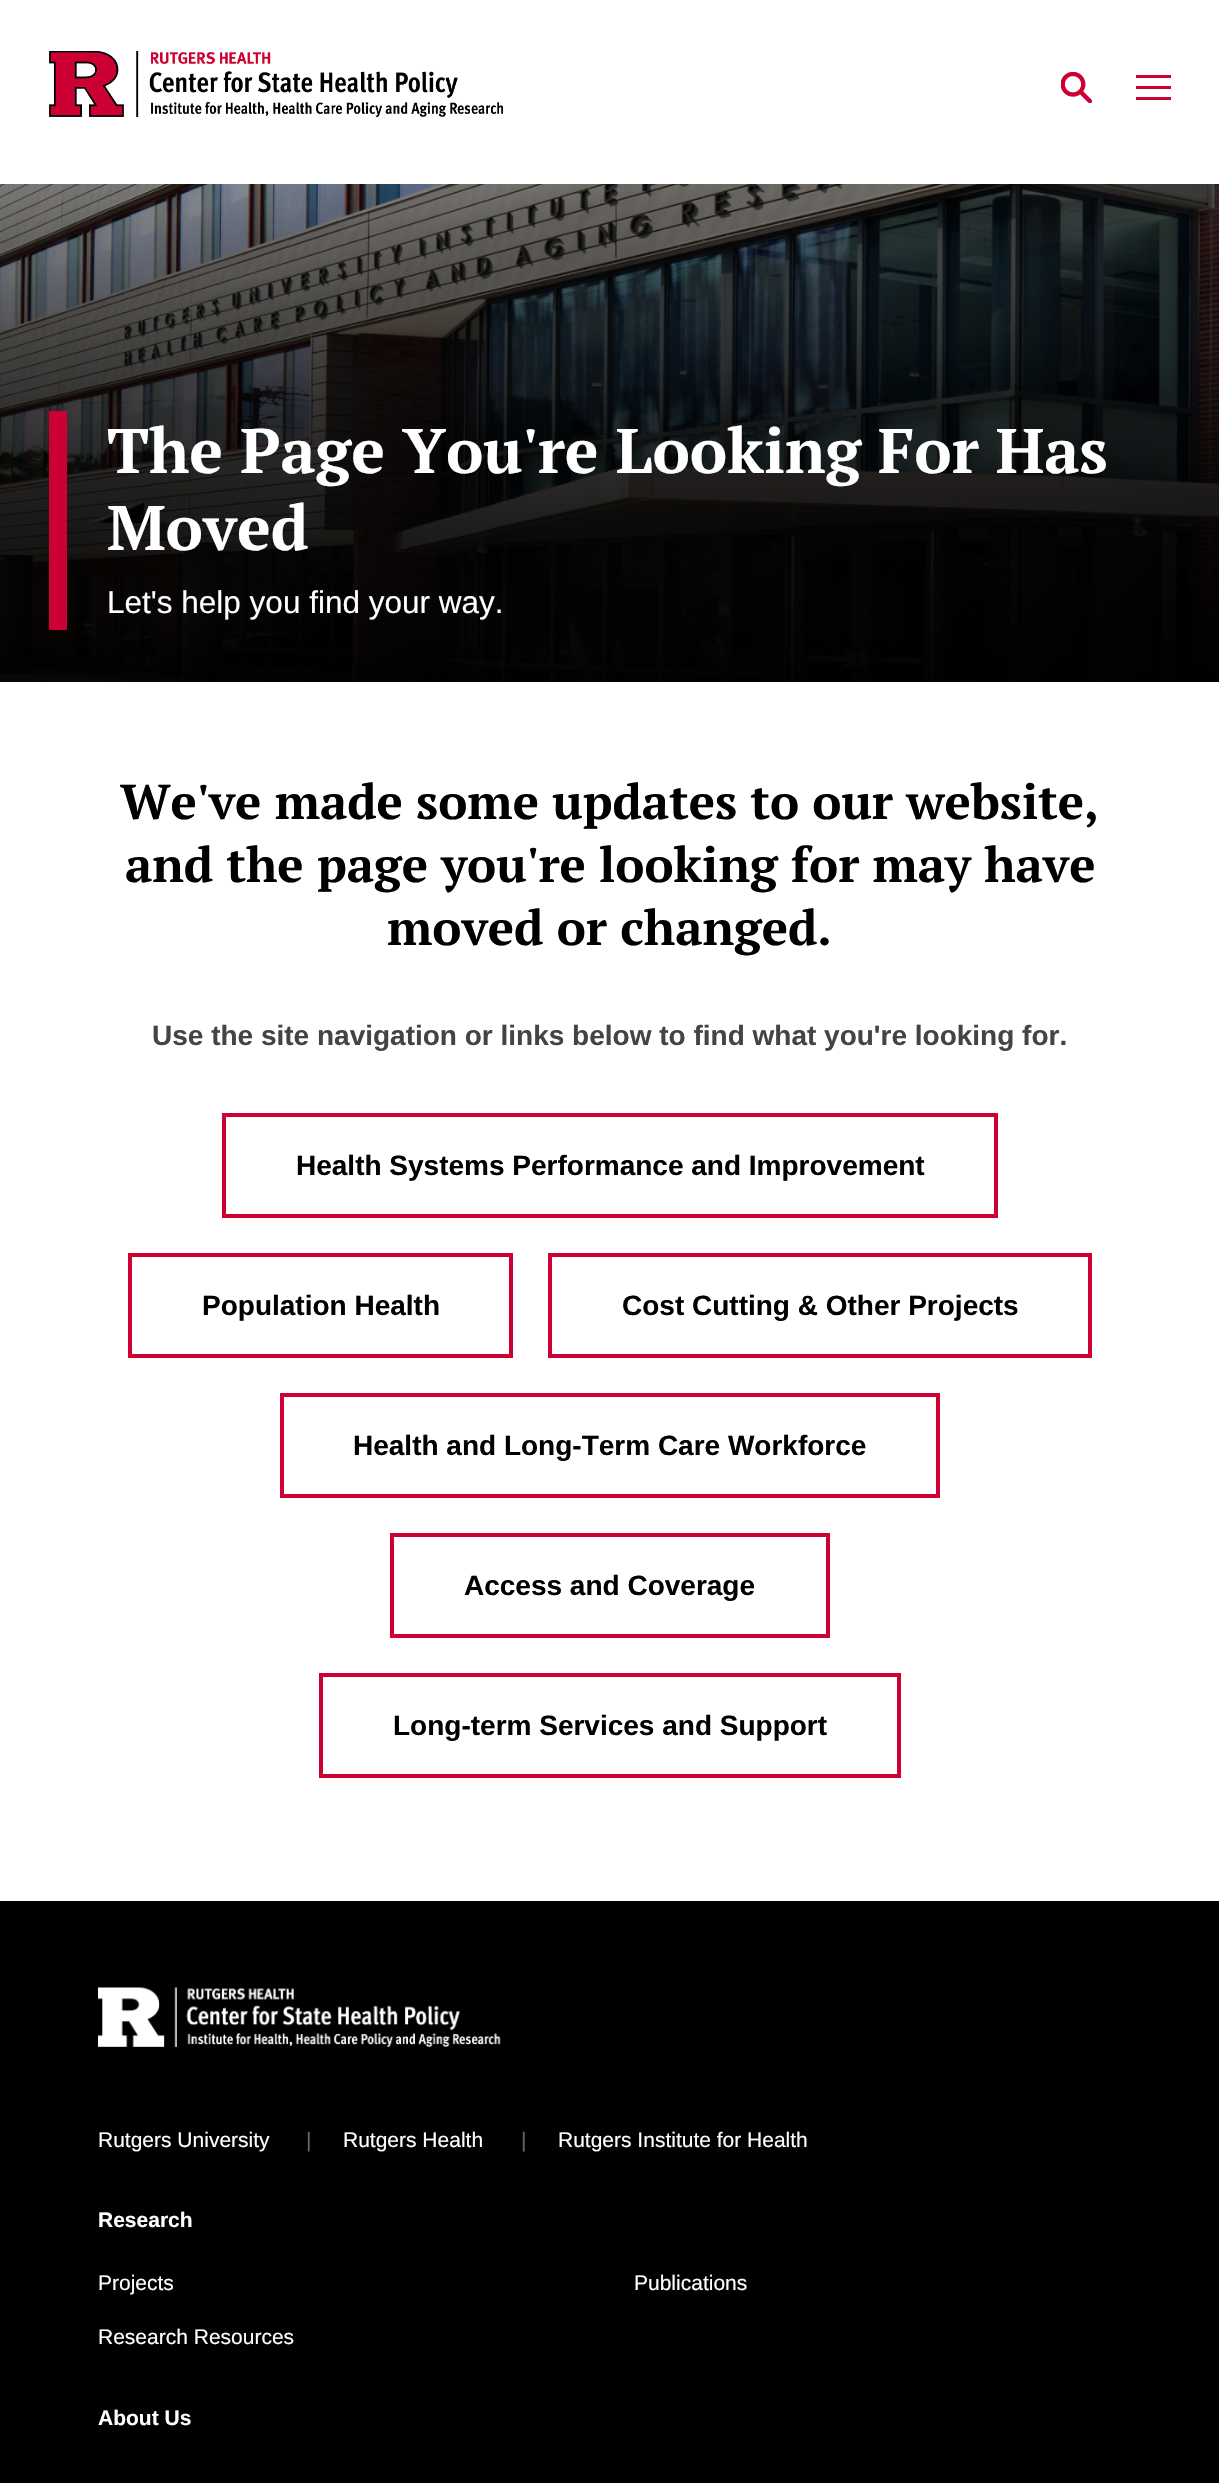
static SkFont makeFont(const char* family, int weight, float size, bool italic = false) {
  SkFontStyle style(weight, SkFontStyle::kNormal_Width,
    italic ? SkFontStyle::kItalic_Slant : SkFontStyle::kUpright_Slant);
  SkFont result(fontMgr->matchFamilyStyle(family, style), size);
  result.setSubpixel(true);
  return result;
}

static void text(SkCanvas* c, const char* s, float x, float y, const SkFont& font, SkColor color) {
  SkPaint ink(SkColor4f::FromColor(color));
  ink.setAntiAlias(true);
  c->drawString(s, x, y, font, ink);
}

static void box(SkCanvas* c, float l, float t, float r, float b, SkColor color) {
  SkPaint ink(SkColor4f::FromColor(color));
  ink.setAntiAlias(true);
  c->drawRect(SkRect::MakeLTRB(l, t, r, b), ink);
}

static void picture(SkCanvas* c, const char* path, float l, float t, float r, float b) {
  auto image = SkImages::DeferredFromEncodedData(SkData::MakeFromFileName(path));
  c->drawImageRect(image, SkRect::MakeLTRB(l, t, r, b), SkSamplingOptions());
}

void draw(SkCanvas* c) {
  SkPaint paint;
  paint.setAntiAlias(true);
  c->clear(0xffffffff);
  picture(c, "img_01.png", 49, 51, 504, 118);
  picture(c, "img_02.png", 1061, 72, 1092, 103);
  paint.setColor(0xffcc0033);
  c->drawPath(SkPathBuilder().moveTo(1171, 97).lineTo(1171, 100).lineTo(1136, 100).lineTo(1136, 97).close().moveTo(1171, 86).lineTo(1171, 89).lineTo(1136, 89).lineTo(1136, 86).close().moveTo(1171, 75).lineTo(1171, 78).lineTo(1136, 78).lineTo(1136, 75).close().detach(), paint);
  picture(c, "img_03.png", 0, 184, 1219, 682);
  box(c, 49, 411, 67, 630, 0xffcc0033);
  SkFont face1 = makeFont("PT Serif", 700, 63);
  text(c, "The Page You're Looking For Has", 107, 473, face1, 0xffffffff);
  text(c, "Moved", 107, 550, face1, 0xffffffff);
  SkFont face2 = makeFont("Liberation Sans", 400, 31.5f);
  text(c, "Let's help you find your way.", 107, 613, face2, 0xffffffff);
  SkFont face3 = makeFont("PT Serif", 700, 49);
  text(c, "We've made some updates to our website,", 120, 819, face3, 0xff000000);
  text(c, "and the page you're looking for may have", 125, 882, face3, 0xff000000);
  text(c, "moved or changed.", 387, 945, face3, 0xff000000);
  SkFont face4 = makeFont("Liberation Sans", 700, 28);
  text(c, "Use the site navigation or links below to find what you're looking for.", 152, 1045, face4, 0xff444444);
  paint.setStyle(SkPaint::kStroke_Style);
  paint.setStrokeWidth(4);
  c->drawRect(SkRect::MakeLTRB(224, 1115, 996, 1216), paint);
  text(c, "Health Systems Performance and Improvement", 296, 1175, face4, 0xff000000);
  c->drawRect(SkRect::MakeLTRB(130, 1255, 511, 1356), paint);
  text(c, "Population Health", 202, 1315, face4, 0xff000000);
  c->drawRect(SkRect::MakeLTRB(550, 1255, 1090, 1356), paint);
  text(c, "Cost Cutting & Other Projects", 622, 1315, face4, 0xff000000);
  c->drawRect(SkRect::MakeLTRB(282, 1395, 938, 1496), paint);
  text(c, "Health and Long-Term Care Workforce", 353, 1455, face4, 0xff000000);
  c->drawRect(SkRect::MakeLTRB(392, 1535, 828, 1636), paint);
  text(c, "Access and Coverage", 464, 1595, face4, 0xff000000);
  c->drawRect(SkRect::MakeLTRB(321, 1675, 899, 1776), paint);
  text(c, "Long-term Services and Support", 393, 1735, face4, 0xff000000);
  box(c, 0, 1901, 1219, 2483, 0xff000000);
  picture(c, "img_04.png", 98, 1987, 501, 2047);
  SkFont face5 = makeFont("Liberation Sans", 400, 21);
  text(c, "Rutgers University", 98, 2147, face5, 0xffffffff);
  text(c, "|", 306, 2147, face5, 0xff666666);
  text(c, "Rutgers Health", 343, 2147, face5, 0xffffffff);
  text(c, "|", 521, 2147, face5, 0xff666666);
  text(c, "Rutgers Institute for Health", 558, 2147, face5, 0xffffffff);
  SkFont face6 = makeFont("Liberation Sans", 700, 21);
  text(c, "Research", 98, 2227, face6, 0xffffffff);
  text(c, "Projects", 98, 2290, face5, 0xffffffff);
  text(c, "Publications", 634, 2290, face5, 0xffffffff);
  text(c, "Research Resources", 98, 2344, face5, 0xffffffff);
  text(c, "About Us", 98, 2425, face6, 0xffffffff);
}
